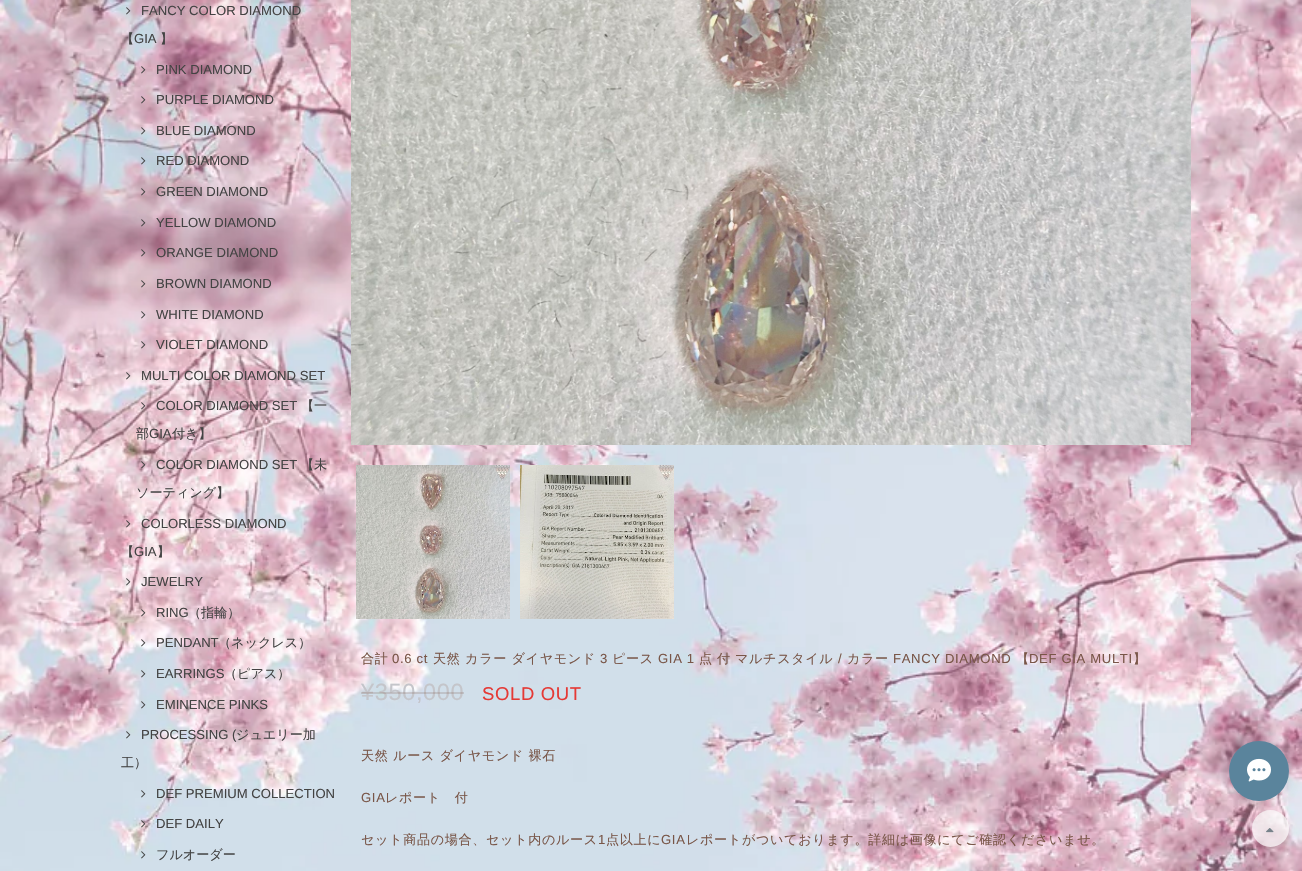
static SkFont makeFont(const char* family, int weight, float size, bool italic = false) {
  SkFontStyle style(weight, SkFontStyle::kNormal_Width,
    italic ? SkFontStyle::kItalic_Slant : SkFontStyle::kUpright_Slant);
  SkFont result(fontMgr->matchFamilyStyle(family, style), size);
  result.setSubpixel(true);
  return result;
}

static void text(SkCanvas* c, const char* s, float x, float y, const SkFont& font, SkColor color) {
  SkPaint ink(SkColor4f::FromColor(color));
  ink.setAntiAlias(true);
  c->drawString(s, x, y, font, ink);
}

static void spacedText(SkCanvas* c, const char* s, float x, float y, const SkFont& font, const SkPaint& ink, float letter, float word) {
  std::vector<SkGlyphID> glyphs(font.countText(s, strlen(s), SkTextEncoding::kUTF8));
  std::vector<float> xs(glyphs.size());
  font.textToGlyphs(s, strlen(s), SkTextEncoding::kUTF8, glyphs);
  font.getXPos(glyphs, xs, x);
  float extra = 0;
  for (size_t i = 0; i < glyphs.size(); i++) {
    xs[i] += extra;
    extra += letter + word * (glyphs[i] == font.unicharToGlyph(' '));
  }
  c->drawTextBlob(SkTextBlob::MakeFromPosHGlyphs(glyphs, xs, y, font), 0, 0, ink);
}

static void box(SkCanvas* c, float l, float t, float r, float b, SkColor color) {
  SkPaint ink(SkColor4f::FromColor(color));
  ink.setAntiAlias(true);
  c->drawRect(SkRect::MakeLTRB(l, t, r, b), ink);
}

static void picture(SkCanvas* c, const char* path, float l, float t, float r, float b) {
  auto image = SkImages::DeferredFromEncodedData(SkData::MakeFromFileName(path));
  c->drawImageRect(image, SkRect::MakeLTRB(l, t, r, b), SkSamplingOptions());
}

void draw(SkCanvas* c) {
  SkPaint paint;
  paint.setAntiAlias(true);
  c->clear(0xffffffff);
  picture(c, "img_01.png", 0, 0, 1302, 871);
  picture(c, "img_02.png", 126, 7, 131, 15);
  SkFont face1 = makeFont("Liberation Sans", 400, 13.1f);
  text(c, "FANCY COLOR DIAMOND", 141, 15, face1, 0xff434343);
  SkFont face2 = makeFont("WenQuanYi Zen Hei", 500, 13.1f);
  text(c, "【", 121, 43, face2, 0xff434343);
  text(c, "GIA", 134, 43, face1, 0xff434343);
  text(c, "】", 160, 43, face2, 0xff434343);
  picture(c, "img_03.png", 141, 66, 146, 74);
  text(c, "PINK DIAMOND", 156, 74, face1, 0xff434343);
  picture(c, "img_04.png", 141, 96, 146, 104);
  text(c, "PURPLE DIAMOND", 156, 104, face1, 0xff434343);
  picture(c, "img_05.png", 141, 127, 146, 135);
  text(c, "BLUE DIAMOND", 156, 135, face1, 0xff434343);
  picture(c, "img_06.png", 141, 157, 146, 165);
  text(c, "RED DIAMOND", 156, 165, face1, 0xff434343);
  picture(c, "img_07.png", 141, 188, 146, 196);
  text(c, "GREEN DIAMOND", 156, 196, face1, 0xff434343);
  picture(c, "img_08.png", 141, 219, 146, 227);
  text(c, "YELLOW DIAMOND", 156, 227, face1, 0xff434343);
  picture(c, "img_09.png", 141, 249, 146, 257);
  text(c, "ORANGE DIAMOND", 156, 257, face1, 0xff434343);
  picture(c, "img_10.png", 141, 280, 146, 288);
  text(c, "BROWN DIAMOND", 156, 288, face1, 0xff434343);
  picture(c, "img_11.png", 141, 311, 146, 319);
  text(c, "WHITE DIAMOND", 156, 319, face1, 0xff434343);
  picture(c, "img_12.png", 141, 341, 146, 349);
  text(c, "VIOLET DIAMOND", 156, 349, face1, 0xff434343);
  picture(c, "img_13.png", 126, 372, 131, 380);
  text(c, "MULTI COLOR DIAMOND SET", 141, 380, face1, 0xff434343);
  picture(c, "img_14.png", 141, 402, 146, 410);
  text(c, "COLOR DIAMOND SET", 156, 410, face1, 0xff434343);
  text(c, "【一", 301, 410, face2, 0xff434343);
  text(c, "部", 136, 438, face2, 0xff434343);
  text(c, "GIA", 149, 438, face1, 0xff434343);
  text(c, "付き】", 172, 438, face2, 0xff434343);
  picture(c, "img_15.png", 141, 461, 146, 469);
  text(c, "COLOR DIAMOND SET", 156, 469, face1, 0xff434343);
  text(c, "【未", 301, 469, face2, 0xff434343);
  text(c, "ソーティング】", 136, 497, face2, 0xff434343);
  picture(c, "img_16.png", 126, 520, 131, 528);
  text(c, "COLORLESS DIAMOND", 141, 528, face1, 0xff434343);
  text(c, "【", 121, 556, face2, 0xff434343);
  text(c, "GIA", 134, 556, face1, 0xff434343);
  text(c, "】", 157, 556, face2, 0xff434343);
  picture(c, "img_17.png", 126, 578, 131, 586);
  text(c, "JEWELRY", 141, 586, face1, 0xff434343);
  picture(c, "img_18.png", 141, 609, 146, 617);
  text(c, "RING", 156, 617, face1, 0xff434343);
  text(c, "（指輪）", 188, 617, face2, 0xff434343);
  picture(c, "img_19.png", 141, 639, 146, 647);
  text(c, "PENDANT", 156, 647, face1, 0xff434343);
  text(c, "（ネックレス）", 218, 647, face2, 0xff434343);
  picture(c, "img_20.png", 141, 670, 146, 678);
  text(c, "EARRINGS", 156, 678, face1, 0xff434343);
  text(c, "（ピアス）", 224, 678, face2, 0xff434343);
  picture(c, "img_21.png", 141, 701, 146, 709);
  text(c, "EMINENCE PINKS", 156, 709, face1, 0xff434343);
  picture(c, "img_22.png", 126, 731, 131, 739);
  text(c, "PROCESSING (", 141, 739, face1, 0xff434343);
  text(c, "ジュエリー加", 236, 739, face2, 0xff434343);
  text(c, "工）", 121, 767, face2, 0xff434343);
  picture(c, "img_23.png", 141, 790, 146, 798);
  text(c, "DEF PREMIUM COLLECTION", 156, 798, face1, 0xff434343);
  picture(c, "img_24.png", 141, 820, 146, 828);
  text(c, "DEF DAILY", 156, 828, face1, 0xff434343);
  picture(c, "img_25.png", 141, 851, 146, 859);
  text(c, "フルオーダー", 156, 859, face2, 0xff434343);
  picture(c, "img_26.png", 351, 0, 1191, 445);
  picture(c, "img_27.png", 356, 465, 510, 619);
  picture(c, "img_28.png", 520, 465, 674, 619);
  paint.setColor(0xff795648);
  spacedText(c, "合計", 361, 663, face2, paint, 0.65f, 0);
  spacedText(c, "0.6 ct", 392, 663, face1, paint, 0.65f, 0);
  spacedText(c, "天然 カラー ダイヤモンド", 433, 663, face2, paint, 0.65f, 0);
  spacedText(c, "3", 600, 663, face1, paint, 0.65f, 0);
  spacedText(c, "ピース", 612, 663, face2, paint, 0.65f, 0);
  spacedText(c, "GIA 1", 658, 663, face1, paint, 0.65f, 0);
  spacedText(c, "点", 699, 663, face2, paint, 0.65f, 0);
  spacedText(c, "付", 717, 663, face2, paint, 0.65f, 0);
  spacedText(c, "マルチスタイル", 735, 663, face2, paint, 0.65f, 0);
  spacedText(c, "/", 838, 663, face1, paint, 0.65f, 0);
  spacedText(c, "カラー", 847, 663, face2, paint, 0.65f, 0);
  spacedText(c, "FANCY DIAMOND", 893, 663, face1, paint, 0.65f, 0);
  spacedText(c, "【", 1016, 663, face2, paint, 0.65f, 0);
  spacedText(c, "DEF GIA MULTI", 1029, 663, face1, paint, 0.65f, 0);
  spacedText(c, "】", 1133, 663, face2, paint, 0.65f, 0);
  SkFont face3 = makeFont("Liberation Sans", 400, 23.5f);
  paint.setColor(0xffc4c5ca);
  spacedText(c, "¥350,000", 361, 700, face3, paint, 0.65f, 0);
  box(c, 361, 692, 464, 694, 0x33795648);
  SkFont face4 = makeFont("Liberation Sans", 400, 18.5f);
  paint.setColor(0xffe53935);
  spacedText(c, "SOLD OUT", 482, 700, face4, paint, 0.65f, 0);
  paint.setColor(0xff795648);
  spacedText(c, "天然 ルース ダイヤモンド 裸石", 361, 760, face2, paint, 0.65f, 0);
  spacedText(c, "GIA", 361, 802, face1, paint, 0.65f, 0);
  spacedText(c, "レポート　付", 385, 802, face2, paint, 0.65f, 0);
  spacedText(c, "セット商品の場合、セット内のルース", 361, 844, face2, paint, 0.65f, 0);
  spacedText(c, "1", 598, 844, face1, paint, 0.65f, 0);
  spacedText(c, "点以上に", 606, 844, face2, paint, 0.65f, 0);
  spacedText(c, "GIA", 661, 844, face1, paint, 0.65f, 0);
  spacedText(c, "レポートがついております。詳細は画像にてご確認くださいませ。", 686, 844, face2, paint, 0.65f, 0);
  paint.setColor(0x33334258);
  paint.setMaskFilter(SkMaskFilter::MakeBlur(kNormal_SkBlurStyle, 7.5f));
  c->drawRoundRect(SkRect::MakeLTRB(1229, 741, 1289, 801), 30, 30, paint);
  paint.setMaskFilter(nullptr);
  paint.setColor(0xff5a849c);
  c->drawCircle(1259, 771, 30, paint);
  picture(c, "img_29.png", 1247, 758, 1271, 782);
  c->save();
  c->clipPath(SkPathBuilder(SkPathFillType::kEvenOdd).moveTo(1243, 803).lineTo(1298, 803).lineTo(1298, 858).lineTo(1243, 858).close().moveTo(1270.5f, 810).cubicTo(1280.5f, 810, 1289, 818.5f, 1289, 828.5f).cubicTo(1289, 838.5f, 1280.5f, 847, 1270.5f, 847).cubicTo(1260.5f, 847, 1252, 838.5f, 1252, 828.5f).cubicTo(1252, 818.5f, 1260.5f, 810, 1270.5f, 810).close().detach(), true);
  paint.setColor(0x1c000000);
  paint.setMaskFilter(SkMaskFilter::MakeBlur(kNormal_SkBlurStyle, 2.5f));
  c->drawRoundRect(SkRect::MakeLTRB(1252, 812, 1289, 849), 18.5f, 18.5f, paint);
  paint.setMaskFilter(nullptr);
  c->restore();
  paint.setColor(0xb3fafafa);
  c->drawCircle(1270.5f, 828.5f, 18.5f, paint);
  picture(c, "img_30.png", 1266, 828, 1274, 833);
}
